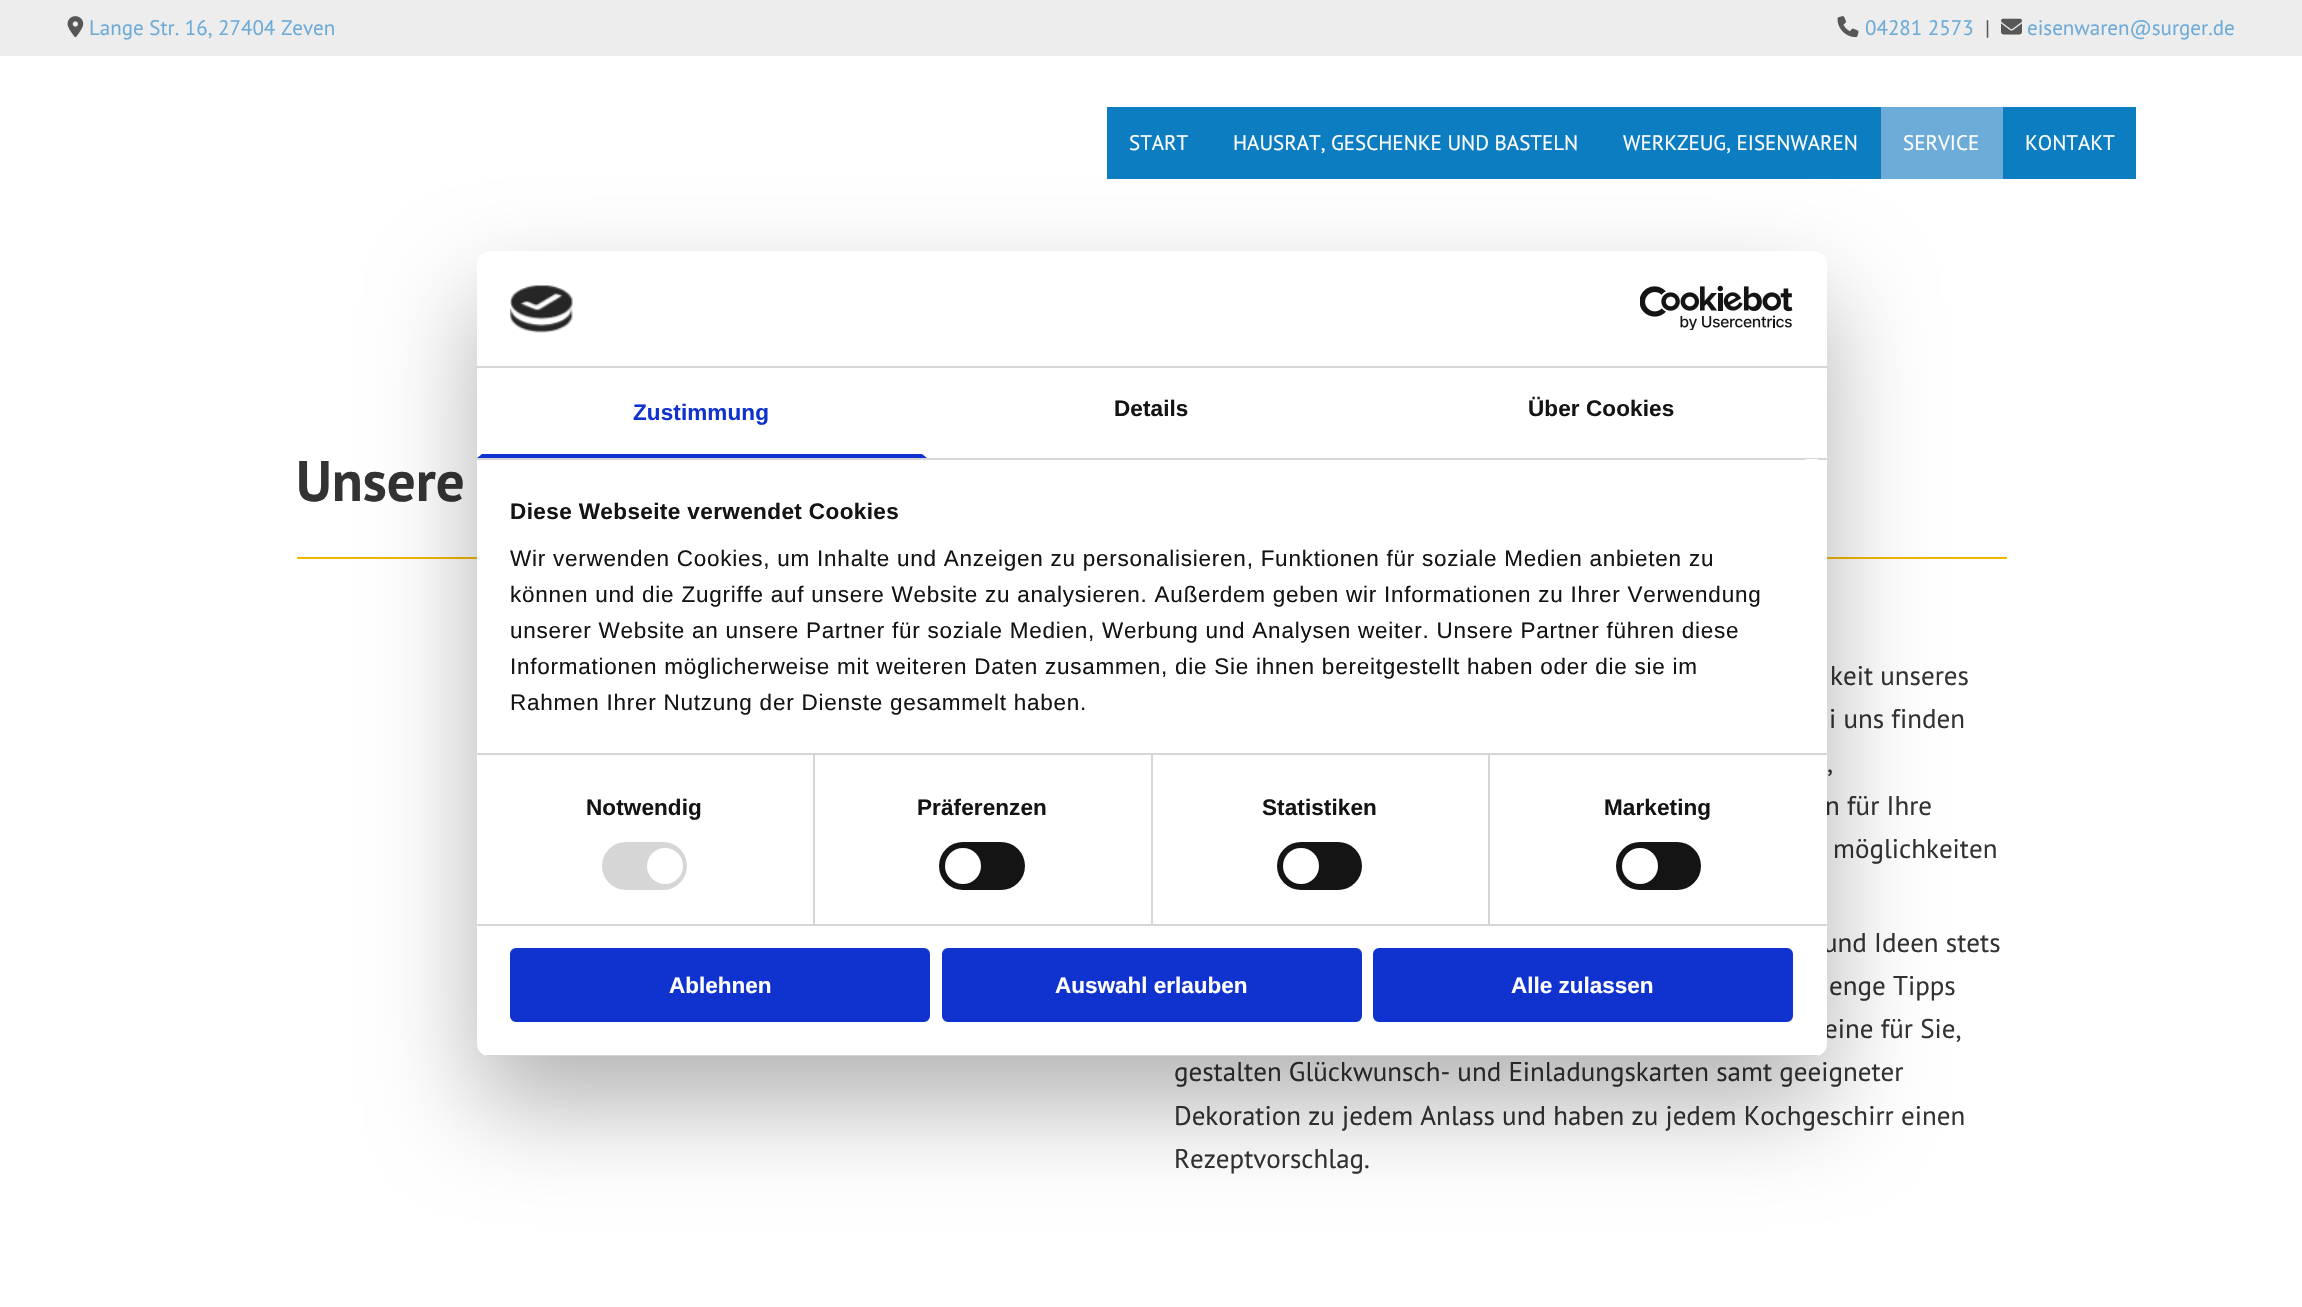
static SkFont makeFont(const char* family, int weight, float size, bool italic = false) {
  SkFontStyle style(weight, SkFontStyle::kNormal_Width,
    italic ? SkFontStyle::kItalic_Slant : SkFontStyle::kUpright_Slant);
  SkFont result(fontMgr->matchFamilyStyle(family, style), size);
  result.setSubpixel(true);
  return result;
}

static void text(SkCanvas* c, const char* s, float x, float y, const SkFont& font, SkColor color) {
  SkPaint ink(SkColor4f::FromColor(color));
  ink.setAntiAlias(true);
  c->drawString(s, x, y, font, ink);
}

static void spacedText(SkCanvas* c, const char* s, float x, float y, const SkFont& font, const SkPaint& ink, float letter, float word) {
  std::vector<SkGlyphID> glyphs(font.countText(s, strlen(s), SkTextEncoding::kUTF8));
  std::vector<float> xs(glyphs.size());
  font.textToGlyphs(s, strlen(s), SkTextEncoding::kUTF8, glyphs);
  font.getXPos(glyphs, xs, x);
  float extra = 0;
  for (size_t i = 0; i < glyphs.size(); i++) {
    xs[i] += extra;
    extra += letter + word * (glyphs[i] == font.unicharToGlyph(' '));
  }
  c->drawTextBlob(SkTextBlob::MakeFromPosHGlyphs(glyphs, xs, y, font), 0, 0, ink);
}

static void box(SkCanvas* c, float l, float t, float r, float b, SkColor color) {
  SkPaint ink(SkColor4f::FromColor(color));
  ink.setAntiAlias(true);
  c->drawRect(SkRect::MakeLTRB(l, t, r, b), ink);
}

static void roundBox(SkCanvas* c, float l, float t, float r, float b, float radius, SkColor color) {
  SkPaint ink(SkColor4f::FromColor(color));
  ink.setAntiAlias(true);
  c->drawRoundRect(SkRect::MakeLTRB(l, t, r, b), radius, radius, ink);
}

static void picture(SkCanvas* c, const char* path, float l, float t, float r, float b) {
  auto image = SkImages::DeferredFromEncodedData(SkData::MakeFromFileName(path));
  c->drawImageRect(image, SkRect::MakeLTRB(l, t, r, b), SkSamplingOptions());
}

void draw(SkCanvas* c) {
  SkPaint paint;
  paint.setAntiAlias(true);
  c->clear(0xffffffff);
  box(c, 0, 0, 2302, 56, 0xffededed);
  picture(c, "img_01.png", 67, 16, 84, 38);
  SkFont face1 = makeFont("PT Sans", 400, 21);
  text(c, "Lange Str. 16, 27404 Zeven", 89, 35, face1, 0xff6dabd8);
  picture(c, "img_02.png", 1837, 16, 1859, 38);
  text(c, "04281 2573", 1865, 35, face1, 0xff6dabd8);
  text(c, "|", 1985, 35, face1, 0xff575757);
  picture(c, "img_03.png", 2001, 18, 2022, 35);
  text(c, "eisenwaren@surger.de", 2027, 35, face1, 0xff6dabd8);
  box(c, 1107, 107, 1881, 179, 0xff0c7dc1);
  text(c, "START", 1129, 150, face1, 0xffffffff);
  text(c, "HAUSRAT, GESCHENKE UND BASTELN", 1233, 150, face1, 0xffffffff);
  text(c, "WERKZEUG, EISENWAREN", 1623, 150, face1, 0xffffffff);
  box(c, 1881, 107, 2003, 179, 0xff6dabd8);
  text(c, "SERVICE", 1903, 150, face1, 0xffffffff);
  box(c, 2003, 107, 2136, 179, 0xff0c7dc1);
  text(c, "KONTAKT", 2025, 150, face1, 0xffffffff);
  SkFont face2 = makeFont("PT Sans", 700, 57);
  text(c, "Unsere", 296, 501, face2, 0xff333333);
  box(c, 297, 557, 2007, 559, 0xfff2b705);
  SkFont face3 = makeFont("PT Sans", 400, 27);
  text(c, "keit unseres", 1830, 685, face3, 0xff333333);
  text(c, "i uns finden", 1829, 728, face3, 0xff333333);
  text(c, ",", 1827, 772, face3, 0xff333333);
  text(c, "n für Ihre", 1825, 815, face3, 0xff333333);
  text(c, "möglichkeiten", 1833, 858, face3, 0xff333333);
  text(c, "und Ideen stets", 1823, 952, face3, 0xff333333);
  text(c, "enge Tipps", 1829, 995, face3, 0xff333333);
  text(c, "eine für Sie,", 1824, 1038, face3, 0xff333333);
  text(c, "gestalten Glückwunsch- und Einladungskarten samt geeigneter", 1174, 1081, face3, 0xff333333);
  text(c, "Dekoration zu jedem Anlass und haben zu jedem Kochgeschirr einen", 1174, 1125, face3, 0xff333333);
  text(c, "Rezeptvorschlag.", 1174, 1168, face3, 0xff333333);
  paint.setColor(0x4d000000);
  paint.setMaskFilter(SkMaskFilter::MakeBlur(kNormal_SkBlurStyle, 51));
  c->drawRoundRect(SkRect::MakeLTRB(477, 299, 1827, 1104), 12, 12, paint);
  paint.setMaskFilter(nullptr);
  roundBox(c, 477, 251, 1827, 1056, 12, 0xffffffff);
  box(c, 477, 366, 1827, 368, 0xffd6d6d6);
  picture(c, "img_04.png", 510, 285, 573, 333);
  picture(c, "img_05.png", 1640, 285, 1793, 330);
  box(c, 477, 458, 1827, 460, 0xffd6d6d6);
  paint.setColor(0xff1032cf);
  c->drawPath(SkPathBuilder().moveTo(927, 458).lineTo(477, 458).lineTo(482, 454).lineTo(922, 454).close().detach(), paint);
  SkFont face4 = makeFont("Liberation Sans", 700, 22.5f);
  spacedText(c, "Zustimmung", 633, 420, face4, paint, 0.1f, 0);
  paint.setColor(0xff141414);
  spacedText(c, "Details", 1114, 416, face4, paint, 0.1f, 0);
  spacedText(c, "Über Cookies", 1528, 416, face4, paint, 0.1f, 0);
  box(c, 477, 753, 1827, 755, 0xffd6d6d6);
  box(c, 1805, 459, 1818, 460, 0xffffffff);
  spacedText(c, "Diese Webseite verwendet Cookies", 510, 519, face4, paint, 0.4f, 0);
  SkFont face5 = makeFont("Liberation Sans", 400, 22.5f);
  spacedText(c, "Wir verwenden Cookies, um Inhalte und Anzeigen zu personalisieren, Funktionen für soziale Medien anbieten zu", 510, 566, face5, paint, 0.75f, 0);
  spacedText(c, "können und die Zugriffe auf unsere Website zu analysieren. Außerdem geben wir Informationen zu Ihrer Verwendung", 510, 602, face5, paint, 0.75f, 0);
  spacedText(c, "unserer Website an unsere Partner für soziale Medien, Werbung und Analysen weiter. Unsere Partner führen diese", 510, 638, face5, paint, 0.75f, 0);
  spacedText(c, "Informationen möglicherweise mit weiteren Daten zusammen, die Sie ihnen bereitgestellt haben oder die sie im", 510, 674, face5, paint, 0.75f, 0);
  spacedText(c, "Rahmen Ihrer Nutzung der Dienste gesammelt haben.", 510, 710, face5, paint, 0.75f, 0);
  box(c, 477, 924, 1827, 926, 0xffd6d6d6);
  box(c, 813, 755, 815, 924, 0xffd6d6d6);
  spacedText(c, "Notwendig", 586, 815, face4, paint, 0.1f, 0);
  roundBox(c, 602, 842, 687, 890, 24, 0xffd6d6d6);
  paint.setColor(0xffffffff);
  c->drawCircle(665, 866, 18, paint);
  box(c, 1151, 755, 1153, 924, 0xffd6d6d6);
  paint.setColor(0xff141414);
  spacedText(c, "Präferenzen", 917, 815, face4, paint, 0.1f, 0);
  roundBox(c, 939, 842, 1025, 890, 24, 0xff141414);
  paint.setColor(0xffffffff);
  c->drawCircle(963, 866, 18, paint);
  box(c, 1488, 755, 1490, 924, 0xffd6d6d6);
  paint.setColor(0xff141414);
  spacedText(c, "Statistiken", 1262, 815, face4, paint, 0.1f, 0);
  roundBox(c, 1277, 842, 1362, 890, 24, 0xff141414);
  paint.setColor(0xffffffff);
  c->drawCircle(1301, 866, 18, paint);
  paint.setColor(0xff141414);
  spacedText(c, "Marketing", 1604, 815, face4, paint, 0.1f, 0);
  roundBox(c, 1616, 842, 1701, 890, 24, 0xff141414);
  paint.setColor(0xffffffff);
  c->drawCircle(1640, 866, 18, paint);
  c->save();
  c->clipPath(SkPathBuilder().moveTo(489, 251).lineTo(1815, 251).cubicTo(1821.5f, 251, 1827, 256.5f, 1827, 263).lineTo(1827, 1044).cubicTo(1827, 1050.5f, 1821.5f, 1056, 1815, 1056).lineTo(489, 1056).cubicTo(482.5f, 1056, 477, 1050.5f, 477, 1044).lineTo(477, 263).cubicTo(477, 256.5f, 482.5f, 251, 489, 251).close().detach(), true);
  box(c, 477, 1055, 1827, 1056, 0xffd6d6d6);
  c->restore();
  paint.setColor(0xff1032cf);
  c->drawRoundRect(SkRect::MakeLTRB(511.5f, 949.5f, 928.5f, 1020.5f), 4.5f, 4.5f, paint);
  paint.setStyle(SkPaint::kStroke_Style);
  paint.setStrokeWidth(3);
  c->drawRoundRect(SkRect::MakeLTRB(511.5f, 949.5f, 928.5f, 1020.5f), 4.5f, 4.5f, paint);
  text(c, "Ablehnen", 669, 993, face4, 0xffffffff);
  paint.setStyle(SkPaint::kFill_Style);
  c->drawRoundRect(SkRect::MakeLTRB(943.5f, 949.5f, 1360.5f, 1020.5f), 4.5f, 4.5f, paint);
  paint.setStyle(SkPaint::kStroke_Style);
  c->drawRoundRect(SkRect::MakeLTRB(943.5f, 949.5f, 1360.5f, 1020.5f), 4.5f, 4.5f, paint);
  text(c, "Auswahl erlauben", 1055, 993, face4, 0xffffffff);
  paint.setStyle(SkPaint::kFill_Style);
  c->drawRoundRect(SkRect::MakeLTRB(1374.5f, 949.5f, 1791.5f, 1020.5f), 4.5f, 4.5f, paint);
  paint.setStyle(SkPaint::kStroke_Style);
  c->drawRoundRect(SkRect::MakeLTRB(1374.5f, 949.5f, 1791.5f, 1020.5f), 4.5f, 4.5f, paint);
  text(c, "Alle zulassen", 1511, 993, face4, 0xffffffff);
}
